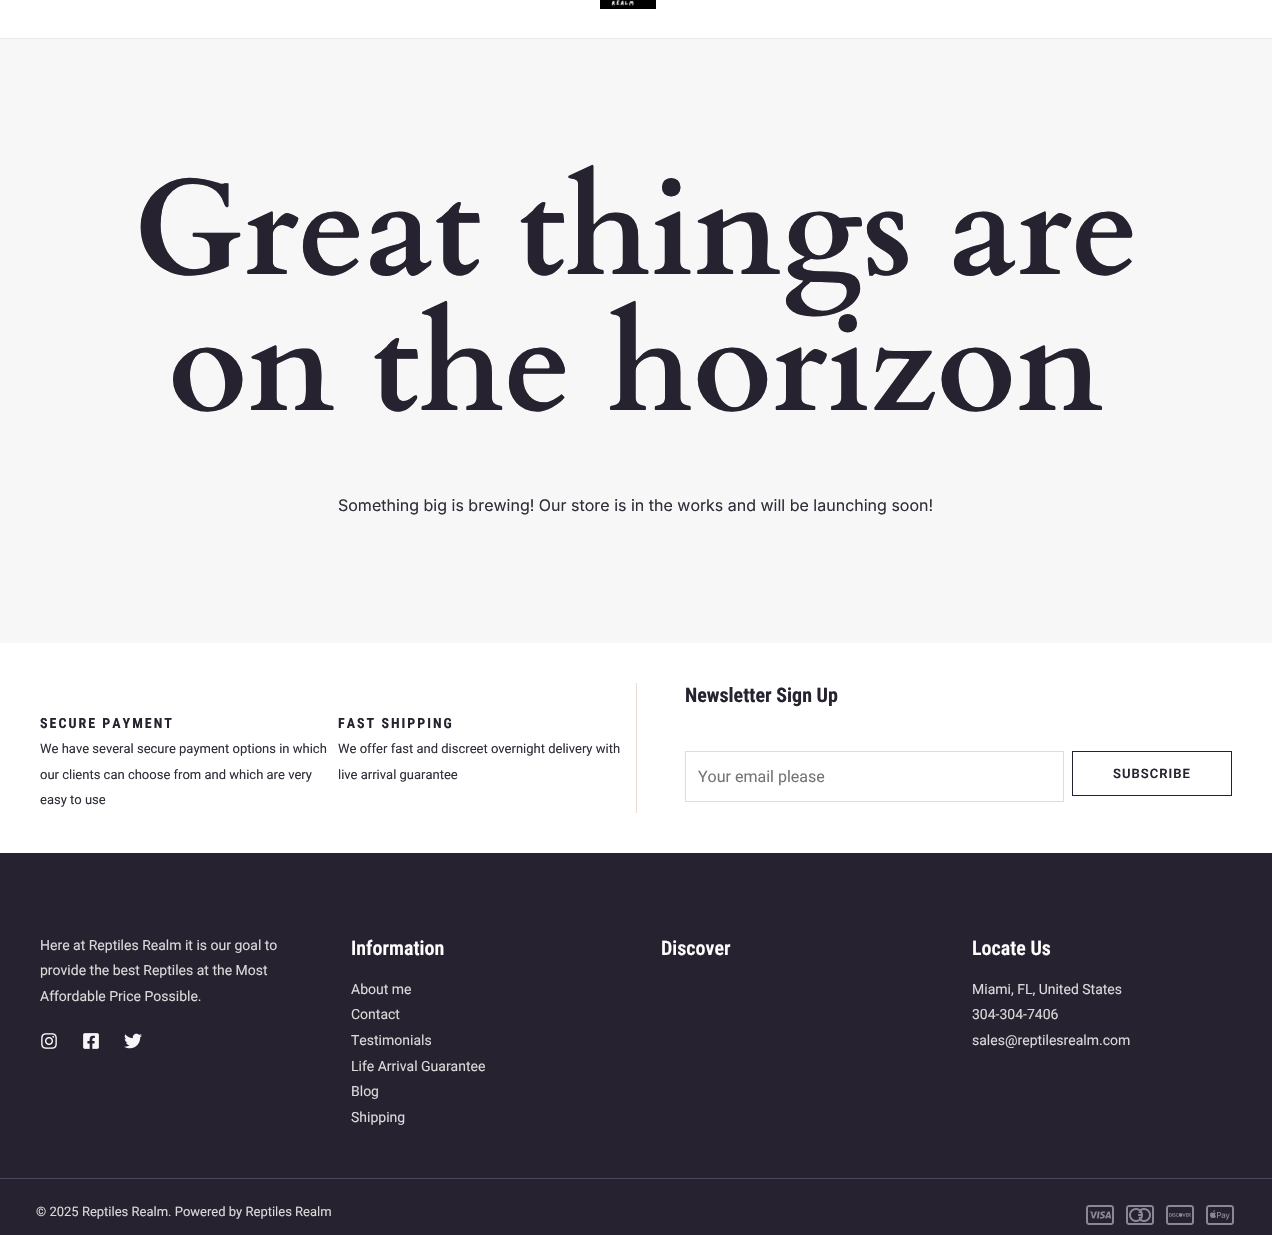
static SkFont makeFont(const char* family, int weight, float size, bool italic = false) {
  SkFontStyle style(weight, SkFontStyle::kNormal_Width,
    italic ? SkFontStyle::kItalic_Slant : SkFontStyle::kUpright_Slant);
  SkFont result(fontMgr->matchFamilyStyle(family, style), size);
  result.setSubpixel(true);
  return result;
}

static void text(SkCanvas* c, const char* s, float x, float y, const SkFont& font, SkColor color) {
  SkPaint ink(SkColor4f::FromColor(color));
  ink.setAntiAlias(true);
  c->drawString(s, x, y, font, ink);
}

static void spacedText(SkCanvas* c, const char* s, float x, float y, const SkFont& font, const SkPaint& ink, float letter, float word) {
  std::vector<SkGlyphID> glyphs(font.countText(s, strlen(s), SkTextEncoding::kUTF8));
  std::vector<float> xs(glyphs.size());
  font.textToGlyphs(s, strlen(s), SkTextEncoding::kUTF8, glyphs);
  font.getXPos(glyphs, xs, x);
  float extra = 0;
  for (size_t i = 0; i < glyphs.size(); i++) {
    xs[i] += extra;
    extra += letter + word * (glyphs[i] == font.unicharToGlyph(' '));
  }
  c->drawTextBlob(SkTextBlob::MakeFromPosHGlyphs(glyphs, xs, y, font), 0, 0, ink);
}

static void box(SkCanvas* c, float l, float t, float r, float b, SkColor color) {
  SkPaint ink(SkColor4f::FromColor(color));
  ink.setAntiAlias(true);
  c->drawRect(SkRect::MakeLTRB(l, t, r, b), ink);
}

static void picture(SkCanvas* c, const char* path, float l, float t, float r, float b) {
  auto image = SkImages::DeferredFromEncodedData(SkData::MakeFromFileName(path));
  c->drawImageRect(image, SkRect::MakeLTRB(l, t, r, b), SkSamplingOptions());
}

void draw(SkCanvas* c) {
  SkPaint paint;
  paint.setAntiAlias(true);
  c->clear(0xfff7f7f7);
  box(c, 0, 0, 1272, 38, 0xffffffff);
  box(c, 0, 38, 1272, 39, 0xffeaeaea);
  picture(c, "img_01.png", 600, 0, 656, 9);
  SkFont face1 = makeFont("Cardo", 700, 136);
  text(c, "Great things are", 133, 274, face1, 0xff26222f);
  text(c, "on the horizon", 168, 410, face1, 0xff26222f);
  SkFont face2 = makeFont("Inter", 400, 16);
  text(c, "Something big is brewing! Our store is in the works and will be launching soon!", 338, 511, face2, 0xff312e39);
  box(c, 0, 643, 1272, 853, 0xffffffff);
  SkFont face3 = makeFont("Roboto Condensed", 700, 14);
  paint.setColor(0xff26222f);
  spacedText(c, "SECURE PAYMENT", 40, 728, face3, paint, 2, 0);
  SkFont face4 = makeFont("Roboto", 400, 13);
  text(c, "We have several secure payment options in which", 40, 753, face4, 0xff312e39);
  text(c, "our clients can choose from and which are very", 40, 779, face4, 0xff312e39);
  text(c, "easy to use", 40, 804, face4, 0xff312e39);
  spacedText(c, "FAST SHIPPING", 338, 728, face3, paint, 2, 0);
  text(c, "We offer fast and discreet overnight delivery with", 338, 753, face4, 0xff312e39);
  text(c, "live arrival guarantee", 338, 779, face4, 0xff312e39);
  box(c, 636, 683, 637, 813, 0xffe7ddd7);
  SkFont face5 = makeFont("Roboto Condensed", 700, 20);
  text(c, "Newsletter Sign Up", 685, 702, face5, 0xff26222f);
  paint.setStyle(SkPaint::kStroke_Style);
  paint.setStrokeWidth(1);
  paint.setColor(0xffdddddd);
  c->drawRect(SkRect::MakeLTRB(685.5f, 751.5f, 1063.5f, 801.5f), paint);
  SkFont face6 = makeFont("Roboto", 400, 16);
  text(c, "Your email please", 698, 782, face6, 0xff757575);
  paint.setColor(0xff26222f);
  c->drawRect(SkRect::MakeLTRB(1072.5f, 751.5f, 1231.5f, 795.5f), paint);
  SkFont face7 = makeFont("Roboto", 600, 13);
  paint.setStyle(SkPaint::kFill_Style);
  spacedText(c, "SUBSCRIBE", 1113, 778, face7, paint, 1, 0);
  box(c, 0, 853, 1272, 1235, 0xff26222f);
  SkFont face8 = makeFont("Roboto", 400, 14);
  text(c, "Here at Reptiles Realm it is our goal to", 40, 950, face8, 0xffd9d9d9);
  text(c, "provide the best Reptiles at the Most", 40, 975, face8, 0xffd9d9d9);
  text(c, "Affordable Price Possible.", 40, 1001, face8, 0xffd9d9d9);
  picture(c, "img_02.png", 41, 1033, 57, 1049);
  picture(c, "img_03.png", 83, 1033, 99, 1049);
  picture(c, "img_04.png", 124, 1033, 142, 1049);
  SkFont face9 = makeFont("Roboto Condensed", 600, 20);
  text(c, "Information", 351, 955, face9, 0xffffffff);
  text(c, "About me", 351, 994, face8, 0xffd9d9d9);
  text(c, "Contact", 351, 1019, face8, 0xffd9d9d9);
  text(c, "Testimonials", 351, 1045, face8, 0xffd9d9d9);
  text(c, "Life Arrival Guarantee", 351, 1071, face8, 0xffd9d9d9);
  text(c, "Blog", 351, 1096, face8, 0xffd9d9d9);
  text(c, "Shipping", 351, 1122, face8, 0xffd9d9d9);
  text(c, "Discover", 661, 955, face9, 0xffffffff);
  text(c, "Locate Us", 972, 955, face9, 0xffffffff);
  text(c, "Miami, FL, United States", 972, 994, face8, 0xffd9d9d9);
  text(c, "304-304-7406", 972, 1019, face8, 0xffd9d9d9);
  text(c, "sales@reptilesrealm.com", 972, 1045, face8, 0xffd9d9d9);
  box(c, 0, 1178, 1272, 1179, 0xff4c455f);
  text(c, "© 2025 Reptiles Realm. Powered by Reptiles Realm", 36, 1216, face4, 0xffd9d9d9);
  picture(c, "img_05.png", 1086, 1205, 1114, 1225);
  picture(c, "img_06.png", 1126, 1205, 1154, 1225);
  picture(c, "img_07.png", 1166, 1205, 1194, 1225);
  picture(c, "img_08.png", 1206, 1205, 1234, 1225);
}
